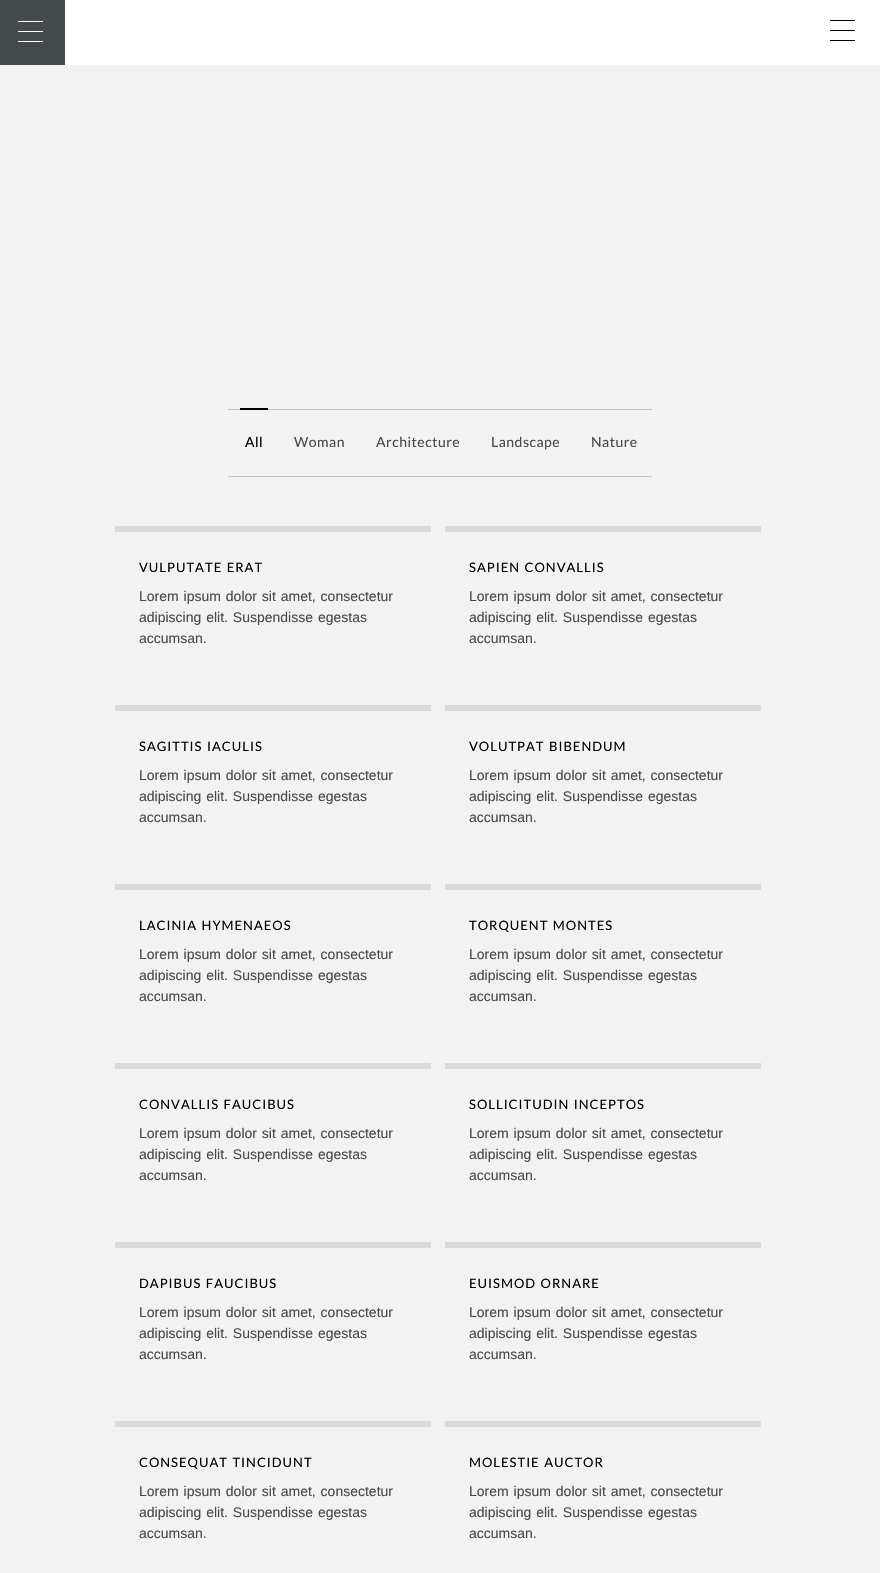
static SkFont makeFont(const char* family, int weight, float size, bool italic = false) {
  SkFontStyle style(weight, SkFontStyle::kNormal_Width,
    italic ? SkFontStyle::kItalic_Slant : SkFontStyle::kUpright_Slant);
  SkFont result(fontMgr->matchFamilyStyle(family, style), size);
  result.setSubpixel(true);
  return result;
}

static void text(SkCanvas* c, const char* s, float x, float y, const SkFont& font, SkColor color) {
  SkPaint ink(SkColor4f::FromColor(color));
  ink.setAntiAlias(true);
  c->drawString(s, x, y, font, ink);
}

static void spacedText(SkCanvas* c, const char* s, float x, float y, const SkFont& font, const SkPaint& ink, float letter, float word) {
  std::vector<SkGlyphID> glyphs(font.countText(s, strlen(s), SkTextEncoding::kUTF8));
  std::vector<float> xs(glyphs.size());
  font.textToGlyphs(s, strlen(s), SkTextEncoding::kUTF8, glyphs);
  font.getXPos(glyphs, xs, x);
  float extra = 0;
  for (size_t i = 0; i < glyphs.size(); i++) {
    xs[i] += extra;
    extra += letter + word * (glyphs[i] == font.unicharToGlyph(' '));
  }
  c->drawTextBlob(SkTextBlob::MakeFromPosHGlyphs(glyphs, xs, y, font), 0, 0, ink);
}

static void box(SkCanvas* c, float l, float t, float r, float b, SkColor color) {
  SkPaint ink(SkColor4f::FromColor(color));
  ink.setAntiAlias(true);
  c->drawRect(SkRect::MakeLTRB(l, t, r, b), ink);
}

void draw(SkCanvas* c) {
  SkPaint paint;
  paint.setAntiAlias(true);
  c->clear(0xfff2f2f2);
  box(c, 0, 0, 65, 65, 0xff44494b);
  box(c, 18, 31, 43, 32, 0xffffffff);
  box(c, 18, 21, 43, 22, 0xffffffff);
  box(c, 18, 41, 43, 42, 0xffffffff);
  box(c, 65, 0, 880, 65, 0xffffffff);
  box(c, 830, 30, 855, 31, 0xff000000);
  box(c, 830, 20, 855, 21, 0xff000000);
  box(c, 830, 40, 855, 41, 0xff000000);
  box(c, 228, 409, 652, 410, 0xffc2c2c2);
  box(c, 228, 476, 652, 477, 0xffc2c2c2);
  box(c, 240, 408, 268, 410, 0xff000000);
  SkFont face1 = makeFont("Lato", 400, 14);
  paint.setColor(0xff000000);
  spacedText(c, "All", 245, 447, face1, paint, 0.5f, 0);
  paint.setColor(0xff494949);
  spacedText(c, "Woman", 294, 447, face1, paint, 0.5f, 0);
  spacedText(c, "Architecture", 376, 447, face1, paint, 0.5f, 0);
  spacedText(c, "Landscape", 491, 447, face1, paint, 0.5f, 0);
  spacedText(c, "Nature", 591, 447, face1, paint, 0.5f, 0);
  box(c, 115, 526, 431, 532, 0xffdadada);
  SkFont face2 = makeFont("Lato", 400, 13);
  paint.setColor(0xff000000);
  spacedText(c, "VULPUTATE ERAT", 139, 572, face2, paint, 1, 1);
  SkFont face3 = makeFont("Liberation Sans", 400, 14);
  paint.setColor(0xff494949);
  spacedText(c, "Lorem ipsum dolor sit amet, consectetur", 139, 601, face3, paint, 0, 1);
  spacedText(c, "adipiscing elit. Suspendisse egestas", 139, 622, face3, paint, 0, 1);
  text(c, "accumsan.", 139, 643, face3, 0xff494949);
  box(c, 445, 526, 761, 532, 0xffdadada);
  paint.setColor(0xff000000);
  spacedText(c, "SAPIEN CONVALLIS", 469, 572, face2, paint, 1, 1);
  paint.setColor(0xff494949);
  spacedText(c, "Lorem ipsum dolor sit amet, consectetur", 469, 601, face3, paint, 0, 1);
  spacedText(c, "adipiscing elit. Suspendisse egestas", 469, 622, face3, paint, 0, 1);
  text(c, "accumsan.", 469, 643, face3, 0xff494949);
  box(c, 115, 705, 431, 711, 0xffdadada);
  paint.setColor(0xff000000);
  spacedText(c, "SAGITTIS IACULIS", 139, 751, face2, paint, 1, 1);
  paint.setColor(0xff494949);
  spacedText(c, "Lorem ipsum dolor sit amet, consectetur", 139, 780, face3, paint, 0, 1);
  spacedText(c, "adipiscing elit. Suspendisse egestas", 139, 801, face3, paint, 0, 1);
  text(c, "accumsan.", 139, 822, face3, 0xff494949);
  box(c, 445, 705, 761, 711, 0xffdadada);
  paint.setColor(0xff000000);
  spacedText(c, "VOLUTPAT BIBENDUM", 469, 751, face2, paint, 1, 1);
  paint.setColor(0xff494949);
  spacedText(c, "Lorem ipsum dolor sit amet, consectetur", 469, 780, face3, paint, 0, 1);
  spacedText(c, "adipiscing elit. Suspendisse egestas", 469, 801, face3, paint, 0, 1);
  text(c, "accumsan.", 469, 822, face3, 0xff494949);
  box(c, 115, 884, 431, 890, 0xffdadada);
  paint.setColor(0xff000000);
  spacedText(c, "LACINIA HYMENAEOS", 139, 930, face2, paint, 1, 1);
  paint.setColor(0xff494949);
  spacedText(c, "Lorem ipsum dolor sit amet, consectetur", 139, 959, face3, paint, 0, 1);
  spacedText(c, "adipiscing elit. Suspendisse egestas", 139, 980, face3, paint, 0, 1);
  text(c, "accumsan.", 139, 1001, face3, 0xff494949);
  box(c, 445, 884, 761, 890, 0xffdadada);
  paint.setColor(0xff000000);
  spacedText(c, "TORQUENT MONTES", 469, 930, face2, paint, 1, 1);
  paint.setColor(0xff494949);
  spacedText(c, "Lorem ipsum dolor sit amet, consectetur", 469, 959, face3, paint, 0, 1);
  spacedText(c, "adipiscing elit. Suspendisse egestas", 469, 980, face3, paint, 0, 1);
  text(c, "accumsan.", 469, 1001, face3, 0xff494949);
  box(c, 115, 1063, 431, 1069, 0xffdadada);
  paint.setColor(0xff000000);
  spacedText(c, "CONVALLIS FAUCIBUS", 139, 1109, face2, paint, 1, 1);
  paint.setColor(0xff494949);
  spacedText(c, "Lorem ipsum dolor sit amet, consectetur", 139, 1138, face3, paint, 0, 1);
  spacedText(c, "adipiscing elit. Suspendisse egestas", 139, 1159, face3, paint, 0, 1);
  text(c, "accumsan.", 139, 1180, face3, 0xff494949);
  box(c, 445, 1063, 761, 1069, 0xffdadada);
  paint.setColor(0xff000000);
  spacedText(c, "SOLLICITUDIN INCEPTOS", 469, 1109, face2, paint, 1, 1);
  paint.setColor(0xff494949);
  spacedText(c, "Lorem ipsum dolor sit amet, consectetur", 469, 1138, face3, paint, 0, 1);
  spacedText(c, "adipiscing elit. Suspendisse egestas", 469, 1159, face3, paint, 0, 1);
  text(c, "accumsan.", 469, 1180, face3, 0xff494949);
  box(c, 115, 1242, 431, 1248, 0xffdadada);
  paint.setColor(0xff000000);
  spacedText(c, "DAPIBUS FAUCIBUS", 139, 1288, face2, paint, 1, 1);
  paint.setColor(0xff494949);
  spacedText(c, "Lorem ipsum dolor sit amet, consectetur", 139, 1317, face3, paint, 0, 1);
  spacedText(c, "adipiscing elit. Suspendisse egestas", 139, 1338, face3, paint, 0, 1);
  text(c, "accumsan.", 139, 1359, face3, 0xff494949);
  box(c, 445, 1242, 761, 1248, 0xffdadada);
  paint.setColor(0xff000000);
  spacedText(c, "EUISMOD ORNARE", 469, 1288, face2, paint, 1, 1);
  paint.setColor(0xff494949);
  spacedText(c, "Lorem ipsum dolor sit amet, consectetur", 469, 1317, face3, paint, 0, 1);
  spacedText(c, "adipiscing elit. Suspendisse egestas", 469, 1338, face3, paint, 0, 1);
  text(c, "accumsan.", 469, 1359, face3, 0xff494949);
  box(c, 115, 1421, 431, 1427, 0xffdadada);
  paint.setColor(0xff000000);
  spacedText(c, "CONSEQUAT TINCIDUNT", 139, 1467, face2, paint, 1, 1);
  paint.setColor(0xff494949);
  spacedText(c, "Lorem ipsum dolor sit amet, consectetur", 139, 1496, face3, paint, 0, 1);
  spacedText(c, "adipiscing elit. Suspendisse egestas", 139, 1517, face3, paint, 0, 1);
  text(c, "accumsan.", 139, 1538, face3, 0xff494949);
  box(c, 445, 1421, 761, 1427, 0xffdadada);
  paint.setColor(0xff000000);
  spacedText(c, "MOLESTIE AUCTOR", 469, 1467, face2, paint, 1, 1);
  paint.setColor(0xff494949);
  spacedText(c, "Lorem ipsum dolor sit amet, consectetur", 469, 1496, face3, paint, 0, 1);
  spacedText(c, "adipiscing elit. Suspendisse egestas", 469, 1517, face3, paint, 0, 1);
  text(c, "accumsan.", 469, 1538, face3, 0xff494949);
}
